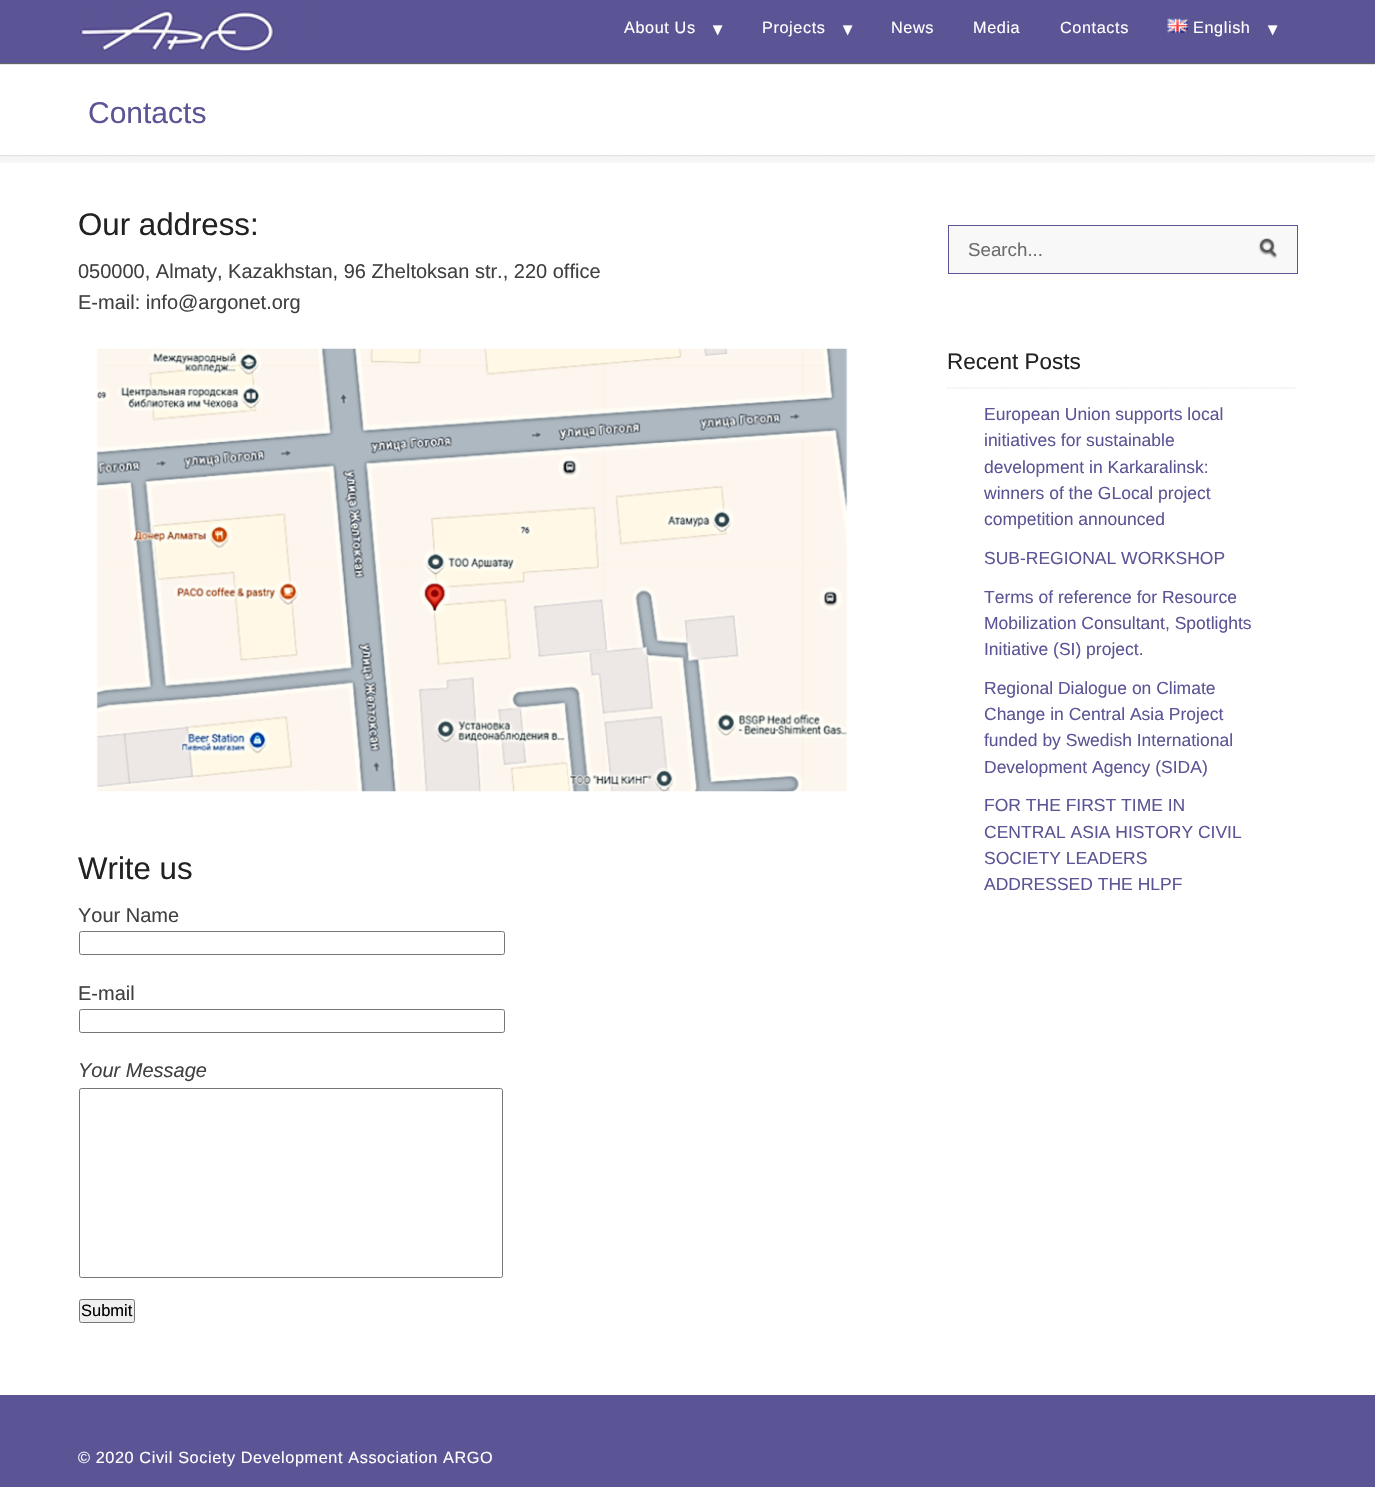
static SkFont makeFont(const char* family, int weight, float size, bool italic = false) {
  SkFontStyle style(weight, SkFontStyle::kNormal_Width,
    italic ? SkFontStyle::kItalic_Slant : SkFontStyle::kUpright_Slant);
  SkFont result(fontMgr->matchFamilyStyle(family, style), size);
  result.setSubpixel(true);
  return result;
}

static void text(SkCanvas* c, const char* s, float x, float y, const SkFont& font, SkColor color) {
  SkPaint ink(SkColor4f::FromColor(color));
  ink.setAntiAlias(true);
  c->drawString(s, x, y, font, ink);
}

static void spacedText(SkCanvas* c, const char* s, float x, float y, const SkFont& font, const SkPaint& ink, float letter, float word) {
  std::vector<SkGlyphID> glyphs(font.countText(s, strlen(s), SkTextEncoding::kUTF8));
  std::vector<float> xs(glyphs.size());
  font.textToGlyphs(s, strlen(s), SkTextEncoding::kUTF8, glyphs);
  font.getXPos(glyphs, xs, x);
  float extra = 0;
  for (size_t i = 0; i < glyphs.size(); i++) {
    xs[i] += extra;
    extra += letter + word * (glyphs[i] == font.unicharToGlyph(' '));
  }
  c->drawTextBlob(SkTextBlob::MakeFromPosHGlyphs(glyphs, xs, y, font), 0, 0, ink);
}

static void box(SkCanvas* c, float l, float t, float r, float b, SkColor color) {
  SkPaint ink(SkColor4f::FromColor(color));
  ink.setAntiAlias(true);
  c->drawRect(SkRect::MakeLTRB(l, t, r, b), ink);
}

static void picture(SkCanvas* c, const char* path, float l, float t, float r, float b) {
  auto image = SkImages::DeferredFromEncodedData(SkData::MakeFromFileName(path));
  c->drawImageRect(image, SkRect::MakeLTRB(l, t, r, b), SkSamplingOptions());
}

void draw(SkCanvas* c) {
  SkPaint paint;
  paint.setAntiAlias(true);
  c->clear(0xffffffff);
  paint.setColor(0xbf323232);
  paint.setMaskFilter(SkMaskFilter::MakeBlur(kNormal_SkBlurStyle, 0.5f));
  c->drawRect(SkRect::MakeLTRB(0, 1, 1375, 64), paint);
  paint.setMaskFilter(nullptr);
  box(c, 0, 0, 1375, 63, 0xff5b5595);
  picture(c, "img_01.png", 80, 0, 311, 55);
  SkFont face1 = makeFont("Liberation Sans", 400, 16.25f);
  paint.setColor(0xffffffff);
  spacedText(c, "About Us", 624, 33, face1, paint, 0.6f, 0);
  SkFont face2 = makeFont("DejaVu Sans", 700, 17.5f);
  spacedText(c, "▾", 713, 35, face2, paint, 0.6f, 0);
  spacedText(c, "Projects", 762, 33, face1, paint, 0.6f, 0);
  spacedText(c, "▾", 843, 35, face2, paint, 0.6f, 0);
  spacedText(c, "News", 891, 33, face1, paint, 0.6f, 0);
  spacedText(c, "Media", 973, 33, face1, paint, 0.6f, 0);
  spacedText(c, "Contacts", 1060, 33, face1, paint, 0.6f, 0);
  picture(c, "img_02.png", 1167, 18, 1188, 33);
  spacedText(c, "English", 1193, 33, face1, paint, 0.6f, 0);
  spacedText(c, "▾", 1268, 35, face2, paint, 0.6f, 0);
  picture(c, "img_03.png", 0, 155, 1375, 163);
  SkFont face3 = makeFont("Liberation Sans", 400, 30);
  text(c, "Contacts", 88, 123, face3, 0xff5b5595);
  SkFont face4 = makeFont("Liberation Sans", 400, 31.25f);
  text(c, "Our address:", 78, 235, face4, 0xff222222);
  SkFont face5 = makeFont("Liberation Sans", 400, 20);
  text(c, "050000, Almaty, Kazakhstan, 96 Zheltoksan str., 220 office", 78, 278, face5, 0xff404040);
  text(c, "E-mail: info@argonet.org", 78, 309, face5, 0xff404040);
  picture(c, "img_04.png", 96, 348, 848, 792);
  text(c, "Write us", 78, 879, face4, 0xff222222);
  text(c, "Your Name", 78, 922, face5, 0xff404040);
  paint.setStyle(SkPaint::kStroke_Style);
  paint.setStrokeWidth(1);
  paint.setColor(0xff767676);
  c->drawRoundRect(SkRect::MakeLTRB(79.5f, 931.5f, 504.5f, 954.5f), 2, 2, paint);
  text(c, "E-mail", 78, 1000, face5, 0xff404040);
  c->drawRoundRect(SkRect::MakeLTRB(79.5f, 1009.5f, 504.5f, 1032.5f), 2, 2, paint);
  SkFont face6 = makeFont("Liberation Sans", 400, 20, true);
  text(c, "Your Message", 78, 1077, face6, 0xff404040);
  c->drawRoundRect(SkRect::MakeLTRB(79.5f, 1088.5f, 502.5f, 1277.5f), 2, 2, paint);
  paint.setStyle(SkPaint::kFill_Style);
  paint.setColor(0xffefefef);
  c->drawRoundRect(SkRect::MakeLTRB(79.5f, 1299.5f, 134.5f, 1322.5f), 2, 2, paint);
  paint.setStyle(SkPaint::kStroke_Style);
  paint.setColor(0xff767676);
  c->drawRoundRect(SkRect::MakeLTRB(79.5f, 1299.5f, 134.5f, 1322.5f), 2, 2, paint);
  SkFont face7 = makeFont("Liberation Sans", 400, 16.5f);
  text(c, "Submit", 81, 1316, face7, 0xff000000);
  paint.setStyle(SkPaint::kFill_Style);
  paint.setColor(0xfff8f8f8);
  c->drawRect(SkRect::MakeLTRB(948.5f, 225.5f, 1297.5f, 273.5f), paint);
  paint.setStyle(SkPaint::kStroke_Style);
  paint.setColor(0xff5b5595);
  c->drawRect(SkRect::MakeLTRB(948.5f, 225.5f, 1297.5f, 273.5f), paint);
  SkFont face8 = makeFont("Liberation Sans", 400, 18.75f);
  text(c, "Search...", 968, 256, face8, 0xff6d6d6d);
  picture(c, "img_05.png", 1258, 238, 1278, 259);
  paint.setStrokeWidth(1.2f);
  paint.setColor(0xffdddddd);
  paint.setPathEffect(SkDashPathEffect::Make({{1.25f, 1.25f}}, 0));
  c->drawPath(SkPathBuilder().moveTo(947.5f, 388).lineTo(1297.5f, 388).detach(), paint);
  paint.setPathEffect(nullptr);
  SkFont face9 = makeFont("Liberation Sans", 400, 22.5f);
  text(c, "Recent Posts", 947, 369, face9, 0xff222222);
  SkFont face10 = makeFont("Liberation Sans", 400, 17.5f);
  text(c, "European Union supports local", 984, 420, face10, 0xff5b5595);
  text(c, "initiatives for sustainable", 984, 446, face10, 0xff5b5595);
  text(c, "development in Karkaralinsk:", 984, 473, face10, 0xff5b5595);
  text(c, "winners of the GLocal project", 984, 499, face10, 0xff5b5595);
  text(c, "competition announced", 984, 525, face10, 0xff5b5595);
  text(c, "SUB-REGIONAL WORKSHOP", 984, 564, face10, 0xff5b5595);
  text(c, "Terms of reference for Resource", 984, 603, face10, 0xff5b5595);
  text(c, "Mobilization Consultant, Spotlights", 984, 629, face10, 0xff5b5595);
  text(c, "Initiative (SI) project.", 984, 655, face10, 0xff5b5595);
  text(c, "Regional Dialogue on Climate", 984, 694, face10, 0xff5b5595);
  text(c, "Change in Central Asia Project", 984, 720, face10, 0xff5b5595);
  text(c, "funded by Swedish International", 984, 746, face10, 0xff5b5595);
  text(c, "Development Agency (SIDA)", 984, 773, face10, 0xff5b5595);
  text(c, "FOR THE FIRST TIME IN", 984, 811, face10, 0xff5b5595);
  text(c, "CENTRAL ASIA HISTORY CIVIL", 984, 838, face10, 0xff5b5595);
  text(c, "SOCIETY LEADERS", 984, 864, face10, 0xff5b5595);
  text(c, "ADDRESSED THE HLPF", 984, 890, face10, 0xff5b5595);
  box(c, 0, 1395, 1375, 1487, 0xff5b5595);
  paint.setStyle(SkPaint::kFill_Style);
  paint.setColor(0xffffffff);
  spacedText(c, "© 2020 Civil Society Development Association ARGO", 78, 1463, face1, paint, 0.6f, 0);
}
